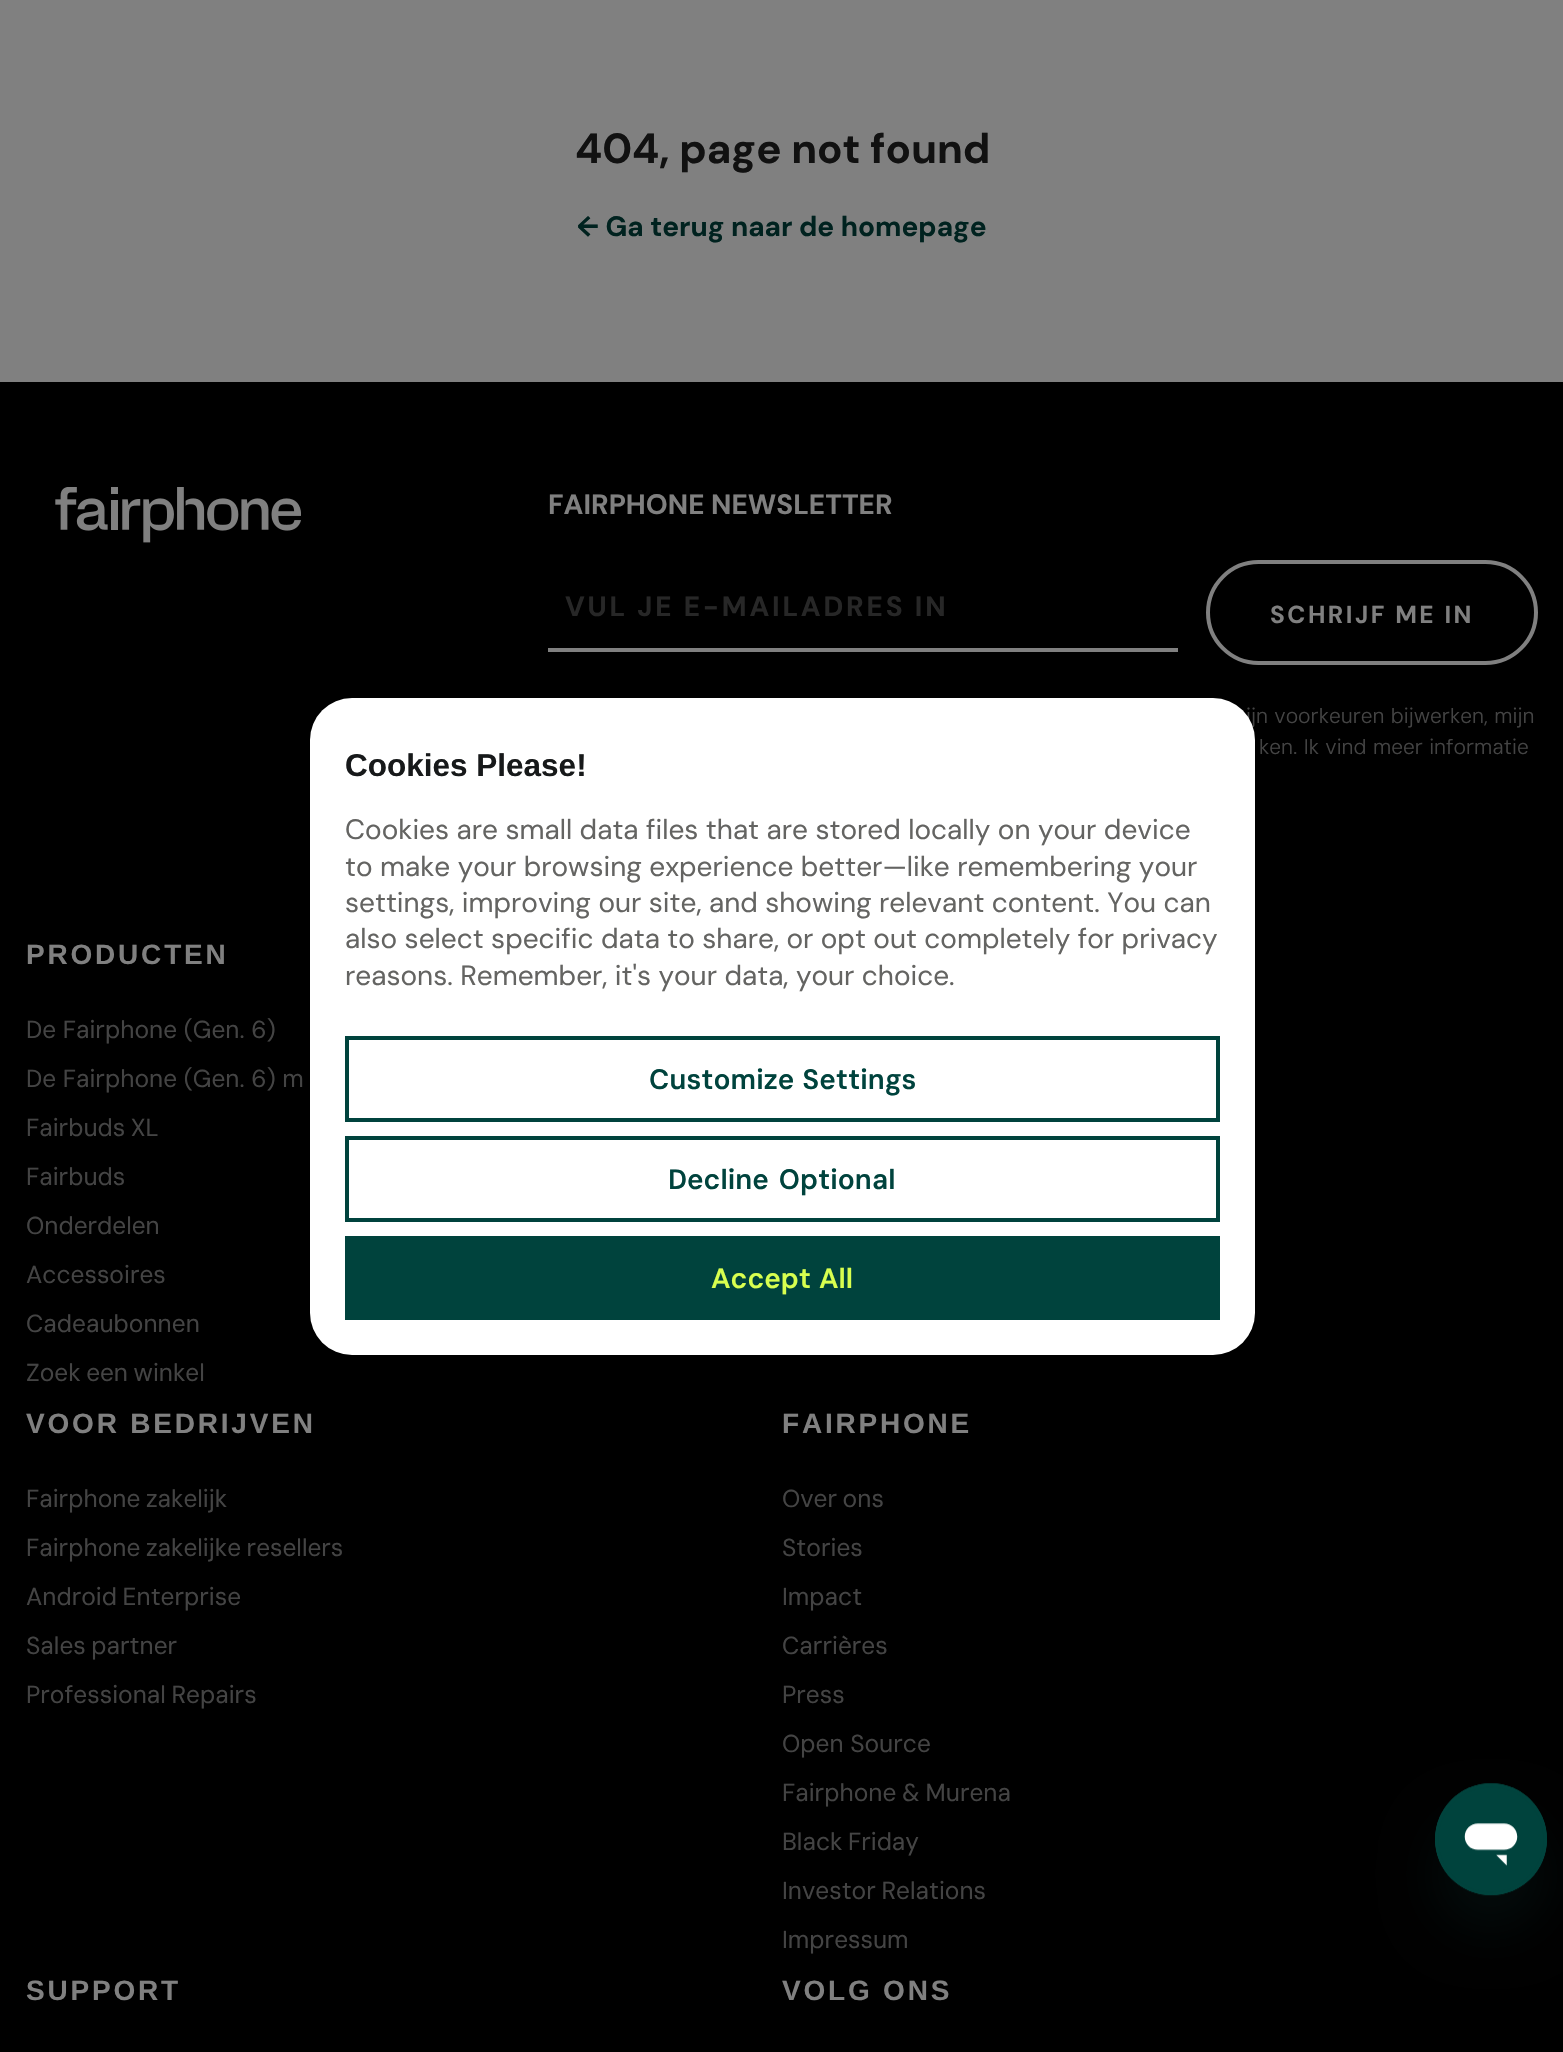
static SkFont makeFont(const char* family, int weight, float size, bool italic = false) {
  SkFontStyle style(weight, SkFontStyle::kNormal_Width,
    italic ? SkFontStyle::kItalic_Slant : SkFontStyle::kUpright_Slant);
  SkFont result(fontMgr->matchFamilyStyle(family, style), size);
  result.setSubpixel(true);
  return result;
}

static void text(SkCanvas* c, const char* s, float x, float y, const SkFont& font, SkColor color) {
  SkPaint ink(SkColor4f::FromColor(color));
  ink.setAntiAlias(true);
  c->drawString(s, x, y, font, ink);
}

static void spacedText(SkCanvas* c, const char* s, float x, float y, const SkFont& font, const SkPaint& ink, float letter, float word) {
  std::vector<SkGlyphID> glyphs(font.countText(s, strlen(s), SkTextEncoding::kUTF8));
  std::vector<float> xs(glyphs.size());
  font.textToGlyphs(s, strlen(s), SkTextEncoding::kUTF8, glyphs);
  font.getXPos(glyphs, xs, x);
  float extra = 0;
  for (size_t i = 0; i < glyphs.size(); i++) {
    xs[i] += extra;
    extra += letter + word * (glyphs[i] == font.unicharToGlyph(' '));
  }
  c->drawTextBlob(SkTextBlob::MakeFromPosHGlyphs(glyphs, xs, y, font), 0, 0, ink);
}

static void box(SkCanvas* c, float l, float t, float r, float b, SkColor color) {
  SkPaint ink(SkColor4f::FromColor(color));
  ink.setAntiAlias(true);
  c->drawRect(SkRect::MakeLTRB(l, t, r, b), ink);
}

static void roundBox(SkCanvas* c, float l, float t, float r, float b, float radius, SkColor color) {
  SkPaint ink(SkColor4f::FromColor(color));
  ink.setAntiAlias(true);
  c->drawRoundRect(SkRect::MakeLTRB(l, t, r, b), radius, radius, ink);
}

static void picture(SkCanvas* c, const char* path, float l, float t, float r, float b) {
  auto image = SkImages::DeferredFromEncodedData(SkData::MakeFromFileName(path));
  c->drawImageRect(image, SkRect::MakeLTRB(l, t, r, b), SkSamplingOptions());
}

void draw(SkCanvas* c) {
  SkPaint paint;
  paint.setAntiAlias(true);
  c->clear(0xff808080);
  SkFont face1 = makeFont("DM Sans", 700, 42);
  text(c, "404, page not found", 575, 163, face1, 0xff111111);
  SkFont face2 = makeFont("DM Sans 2", 700, 28);
  text(c, "← Ga terug naar de homepage", 577, 236, face2, 0xff00221f);
  box(c, 0, 382, 1563, 2052, 0xff000000);
  picture(c, "img_01.png", 55, 487, 301, 543);
  text(c, "FAIRPHONE NEWSLETTER", 548, 514, face2, 0xff808080);
  paint.setColor(0xff272727);
  spacedText(c, "VUL JE E-MAILADRES IN", 565, 616, face2, paint, 2.8f, 0);
  box(c, 548, 648, 1178, 652, 0xff808080);
  paint.setStyle(SkPaint::kStroke_Style);
  paint.setStrokeWidth(4);
  paint.setColor(0xff808080);
  c->drawRoundRect(SkRect::MakeLTRB(1208, 562, 1536, 663), 50.5f, 50.5f, paint);
  SkFont face3 = makeFont("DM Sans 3", 700, 24.5f);
  paint.setStyle(SkPaint::kFill_Style);
  spacedText(c, "SCHRIJF ME IN", 1270, 623, face3, paint, 2.5f, 0);
  SkFont face4 = makeFont("DM Sans", 300, 21);
  paint.setColor(0xff444444);
  spacedText(c, "ijn voorkeuren bijwerken, mijn", 1246, 723, face4, paint, 0, 0.5f);
  spacedText(c, "ken. Ik vind meer informatie", 1259, 754, face4, paint, 0, 0.5f);
  roundBox(c, 310, 698, 1255, 1355, 42, 0xffffffff);
  SkFont face5 = makeFont("Liberation Sans", 700, 31.5f);
  text(c, "Cookies Please!", 345, 776, face5, 0xff17191a);
  SkFont face6 = makeFont("DM Sans 2", 400, 28);
  text(c, "Cookies are small data files that are stored locally on your device", 345, 839, face6, 0xff646462);
  text(c, "to make your browsing experience better—like remembering your", 345, 876, face6, 0xff646462);
  text(c, "settings, improving our site, and showing relevant content. You can", 345, 912, face6, 0xff646462);
  text(c, "also select specific data to share, or opt out completely for privacy", 345, 948, face6, 0xff646462);
  text(c, "reasons. Remember, it's your data, your choice.", 345, 985, face6, 0xff646462);
  paint.setStyle(SkPaint::kStroke_Style);
  paint.setColor(0xff00433d);
  c->drawRect(SkRect::MakeLTRB(347, 1038, 1218, 1120), paint);
  SkFont face7 = makeFont("DM Sans", 600, 28);
  paint.setStyle(SkPaint::kFill_Style);
  spacedText(c, "Customize Settings", 649, 1089, face7, paint, 0, 1);
  paint.setStyle(SkPaint::kStroke_Style);
  c->drawRect(SkRect::MakeLTRB(347, 1138, 1218, 1220), paint);
  paint.setStyle(SkPaint::kFill_Style);
  spacedText(c, "Decline Optional", 668, 1189, face7, paint, 0, 3);
  box(c, 345, 1236, 1220, 1320, 0xff00433d);
  paint.setColor(0xffd8ff4f);
  spacedText(c, "Accept All", 711, 1288, face7, paint, 0, 1);
  SkFont face8 = makeFont("Liberation Sans", 700, 28);
  paint.setColor(0xff808080);
  spacedText(c, "PRODUCTEN", 26, 964, face8, paint, 2.8f, 0);
  SkFont face9 = makeFont("DM Sans", 400, 24.5f);
  text(c, "De Fairphone (Gen. 6)", 26, 1038, face9, 0xff444444);
  text(c, "De Fairphone (Gen. 6) m", 26, 1087, face9, 0xff444444);
  paint.setColor(0xff444444);
  spacedText(c, "Fairbuds XL", 26, 1136, face9, paint, 0, -1);
  text(c, "Fairbuds", 26, 1185, face9, 0xff444444);
  text(c, "Onderdelen", 26, 1234, face9, 0xff444444);
  text(c, "Accessoires", 26, 1283, face9, 0xff444444);
  text(c, "Cadeaubonnen", 26, 1332, face9, 0xff444444);
  spacedText(c, "Zoek een winkel", 26, 1381, face9, paint, 0, -1);
  paint.setColor(0xff808080);
  spacedText(c, "VOOR BEDRIJVEN", 26, 1433, face8, paint, 2.8f, 0);
  paint.setColor(0xff444444);
  spacedText(c, "Fairphone zakelijk", 26, 1507, face9, paint, 0, -1);
  spacedText(c, "Fairphone zakelijke resellers", 26, 1556, face9, paint, 0, -1);
  spacedText(c, "Android Enterprise", 26, 1605, face9, paint, 0, -1);
  spacedText(c, "Sales partner", 26, 1654, face9, paint, 0, -1);
  spacedText(c, "Professional Repairs", 26, 1703, face9, paint, 0, -1);
  paint.setColor(0xff808080);
  spacedText(c, "FAIRPHONE", 782, 1433, face8, paint, 2.8f, 0);
  paint.setColor(0xff444444);
  spacedText(c, "Over ons", 782, 1507, face9, paint, 0, -1);
  text(c, "Stories", 782, 1556, face9, 0xff444444);
  text(c, "Impact", 782, 1605, face9, 0xff444444);
  text(c, "Carrières", 782, 1654, face9, 0xff444444);
  text(c, "Press", 782, 1703, face9, 0xff444444);
  text(c, "Open Source", 782, 1752, face9, 0xff444444);
  spacedText(c, "Fairphone & Murena", 782, 1801, face9, paint, 0, -1);
  spacedText(c, "Black Friday", 782, 1850, face9, paint, 0, -1);
  spacedText(c, "Investor Relations", 782, 1899, face9, paint, 0, -1);
  text(c, "Impressum", 782, 1948, face9, 0xff444444);
  paint.setColor(0xff808080);
  spacedText(c, "SUPPORT", 26, 2000, face8, paint, 2.8f, 0);
  spacedText(c, "VOLG ONS", 782, 2000, face8, paint, 2.8f, 0);
  paint.setColor(0x2617494d);
  paint.setMaskFilter(SkMaskFilter::MakeBlur(kNormal_SkBlurStyle, 26));
  c->drawRoundRect(SkRect::MakeLTRB(1435, 1818, 1547, 1930), 56, 56, paint);
  paint.setMaskFilter(nullptr);
  picture(c, "img_02.png", 1435, 1783, 1547, 1896);
}
